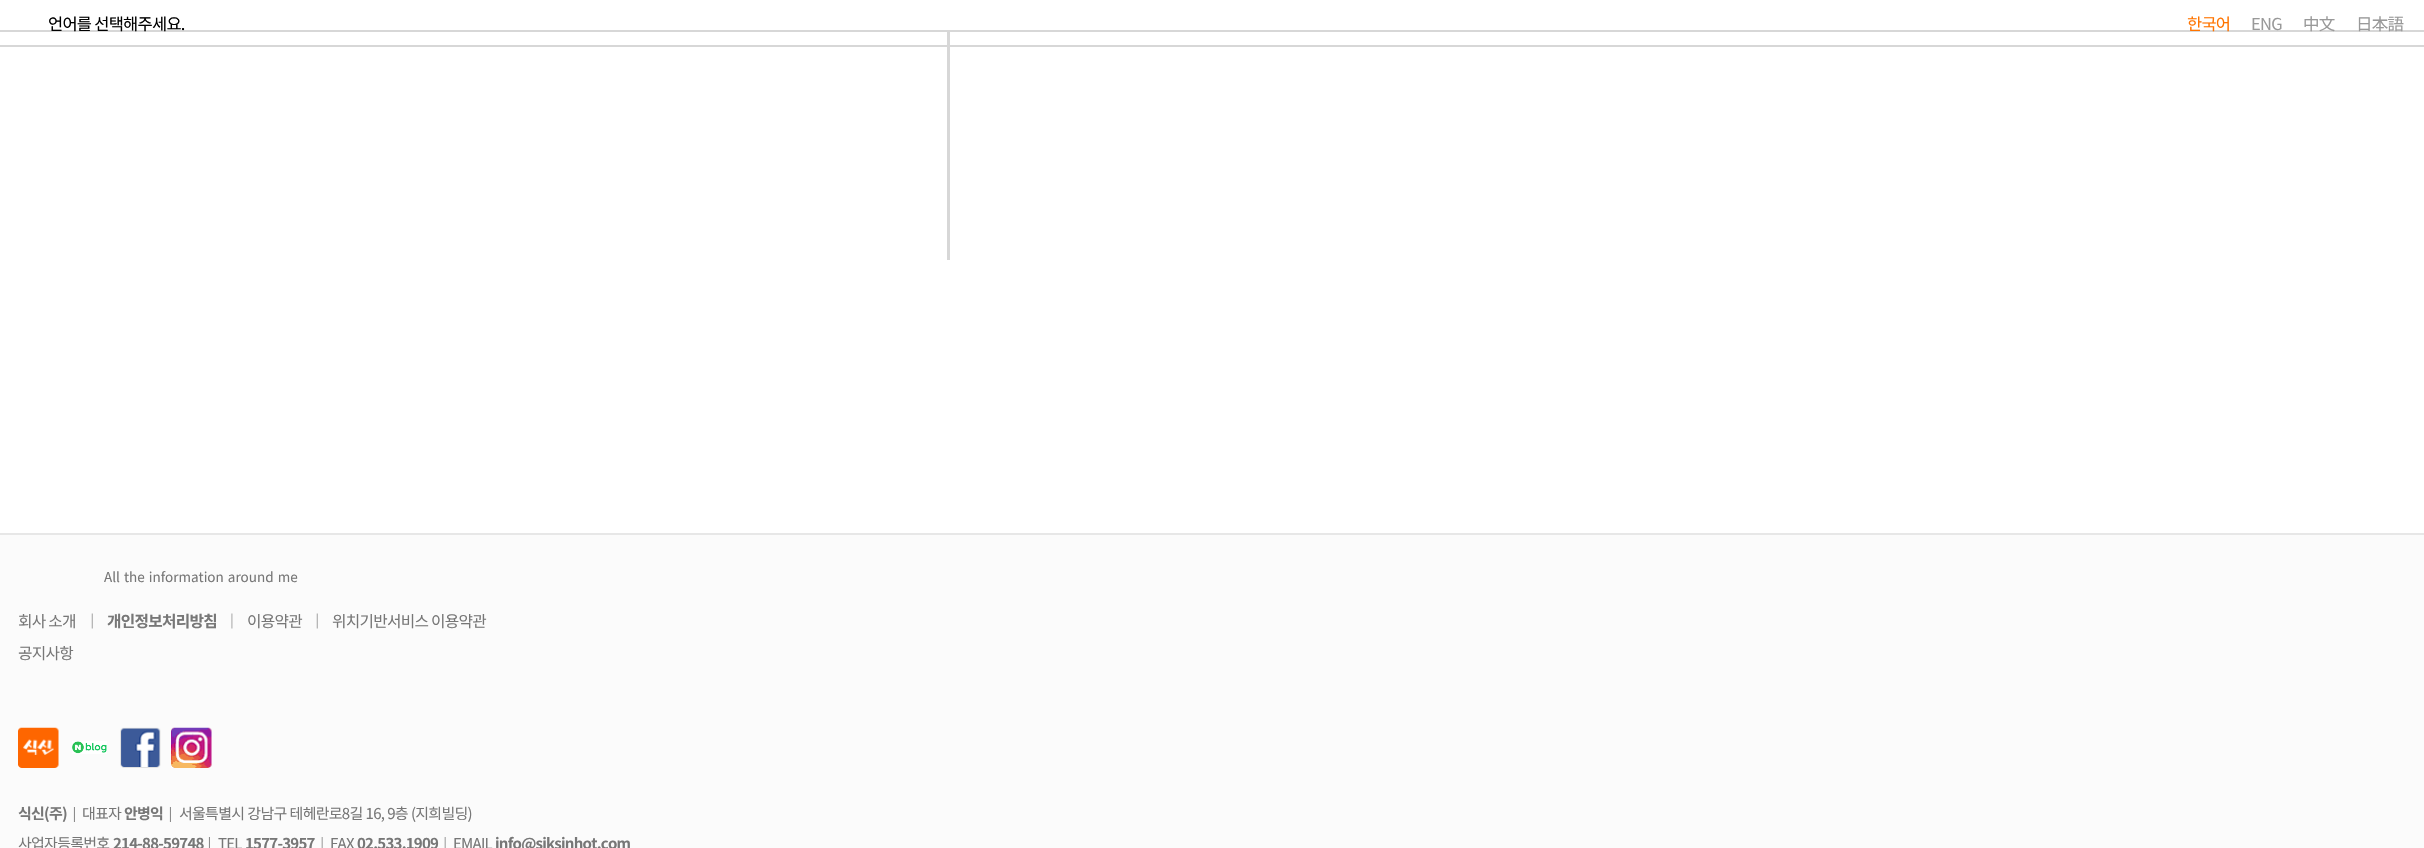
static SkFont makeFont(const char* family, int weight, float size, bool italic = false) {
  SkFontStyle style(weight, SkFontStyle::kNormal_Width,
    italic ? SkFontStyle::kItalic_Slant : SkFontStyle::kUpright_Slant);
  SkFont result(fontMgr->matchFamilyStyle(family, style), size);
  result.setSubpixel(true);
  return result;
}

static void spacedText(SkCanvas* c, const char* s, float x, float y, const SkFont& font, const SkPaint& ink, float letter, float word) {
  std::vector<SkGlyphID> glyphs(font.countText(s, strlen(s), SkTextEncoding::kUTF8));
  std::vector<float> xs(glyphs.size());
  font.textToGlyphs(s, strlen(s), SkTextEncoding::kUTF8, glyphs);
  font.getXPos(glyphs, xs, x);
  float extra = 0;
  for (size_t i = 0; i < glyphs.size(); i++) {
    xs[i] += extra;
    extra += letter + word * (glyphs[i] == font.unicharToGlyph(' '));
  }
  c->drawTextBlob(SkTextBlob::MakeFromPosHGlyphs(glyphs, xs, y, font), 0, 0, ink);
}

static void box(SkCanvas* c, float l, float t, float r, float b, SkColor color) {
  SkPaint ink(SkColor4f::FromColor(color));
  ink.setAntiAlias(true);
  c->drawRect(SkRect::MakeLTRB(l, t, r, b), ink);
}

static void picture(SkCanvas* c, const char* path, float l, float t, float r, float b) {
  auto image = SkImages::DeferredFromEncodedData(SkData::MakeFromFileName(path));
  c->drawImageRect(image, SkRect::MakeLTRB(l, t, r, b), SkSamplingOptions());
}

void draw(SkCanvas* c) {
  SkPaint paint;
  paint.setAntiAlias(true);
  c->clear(0xffffffff);
  box(c, 0, 45, 2424, 47, 0xffd7d7d7);
  box(c, 0, 30, 2424, 32, 0xffd7d7d7);
  SkFont face1 = makeFont("Noto Sans KR", 400, 16.5f);
  paint.setColor(0xff000000);
  spacedText(c, "언어를 선택해주세요.", 48, 30, face1, paint, -0.75f, 0);
  paint.setColor(0xffff7400);
  spacedText(c, "한국어", 2187, 30, face1, paint, -0.75f, 0);
  SkFont face2 = makeFont("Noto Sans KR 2", 400, 16.5f);
  paint.setColor(0xff999999);
  spacedText(c, "ENG", 2251, 30, face2, paint, -0.75f, 0);
  spacedText(c, "中文", 2303, 30, face2, paint, -0.75f, 0);
  spacedText(c, "日本語", 2356, 30, face2, paint, -0.75f, 0);
  box(c, 947, 32, 950, 260, 0xffd7d7d7);
  box(c, 0, 535, 2424, 848, 0xfffbfbfb);
  box(c, 0, 533, 2424, 535, 0xffe7e7e7);
  SkFont face3 = makeFont("Noto Sans KR 2", 400, 13.5f);
  paint.setColor(0xff777777);
  spacedText(c, "All the information around me", 104, 582, face3, paint, 0, 1);
  SkFont face4 = makeFont("Noto Sans KR", 400, 15.75f);
  spacedText(c, "회사 소개", 18, 627, face4, paint, -0.75f, 0);
  picture(c, "img_01.png", 91, 613, 93, 629);
  SkFont face5 = makeFont("Noto Sans KR", 700, 15.75f);
  spacedText(c, "개인정보처리방침", 107, 627, face5, paint, -0.75f, 0);
  picture(c, "img_02.png", 231, 613, 233, 629);
  spacedText(c, "이용약관", 247, 627, face4, paint, -0.75f, 0);
  picture(c, "img_01.png", 316, 613, 318, 629);
  spacedText(c, "위치기반서비스 이용약관", 332, 627, face4, paint, -0.75f, 0);
  spacedText(c, "공지사항", 18, 659, face4, paint, -0.75f, 0);
  picture(c, "img_03.png", 18, 727, 59, 768);
  picture(c, "img_04.png", 72, 741, 107, 754);
  picture(c, "img_05.png", 120, 727, 161, 768);
  picture(c, "img_06.png", 171, 727, 212, 768);
  SkFont face6 = makeFont("Noto Sans KR", 700, 15);
  spacedText(c, "식신(주)", 18, 819, face6, paint, -0.75f, 0);
  picture(c, "img_07.png", 73, 807, 75, 822);
  SkFont face7 = makeFont("Noto Sans KR", 400, 15);
  spacedText(c, "대표자", 82, 819, face7, paint, -0.75f, 0);
  spacedText(c, "안병익", 124, 819, face6, paint, -0.75f, 0);
  picture(c, "img_07.png", 169, 807, 171, 822);
  spacedText(c, "서울특별시 강남구 테헤란로8길 16, 9층 (지희빌딩)", 179, 819, face7, paint, -0.75f, 0.5f);
  spacedText(c, "사업자등록번호", 18, 849, face7, paint, -0.75f, 0);
  SkFont face8 = makeFont("Noto Sans KR 2", 700, 15);
  spacedText(c, "214-88-59748", 113, 849, face8, paint, -0.75f, 0);
  picture(c, "img_08.png", 208, 837, 210, 848);
  SkFont face9 = makeFont("Noto Sans KR 2", 400, 15);
  spacedText(c, "TEL", 218, 849, face9, paint, -0.75f, 0);
  spacedText(c, "1577-3957", 245, 849, face8, paint, -0.75f, 0);
  picture(c, "img_09.png", 321, 837, 323, 848);
  spacedText(c, "FAX", 330, 849, face9, paint, -0.75f, 0);
  spacedText(c, "02.533.1909", 357, 849, face8, paint, -0.75f, 0);
  picture(c, "img_09.png", 444, 837, 446, 848);
  spacedText(c, "EMAIL", 453, 849, face9, paint, -0.75f, 0);
  spacedText(c, "info@siksinhot.com", 495, 849, face8, paint, -0.75f, 0);
}
